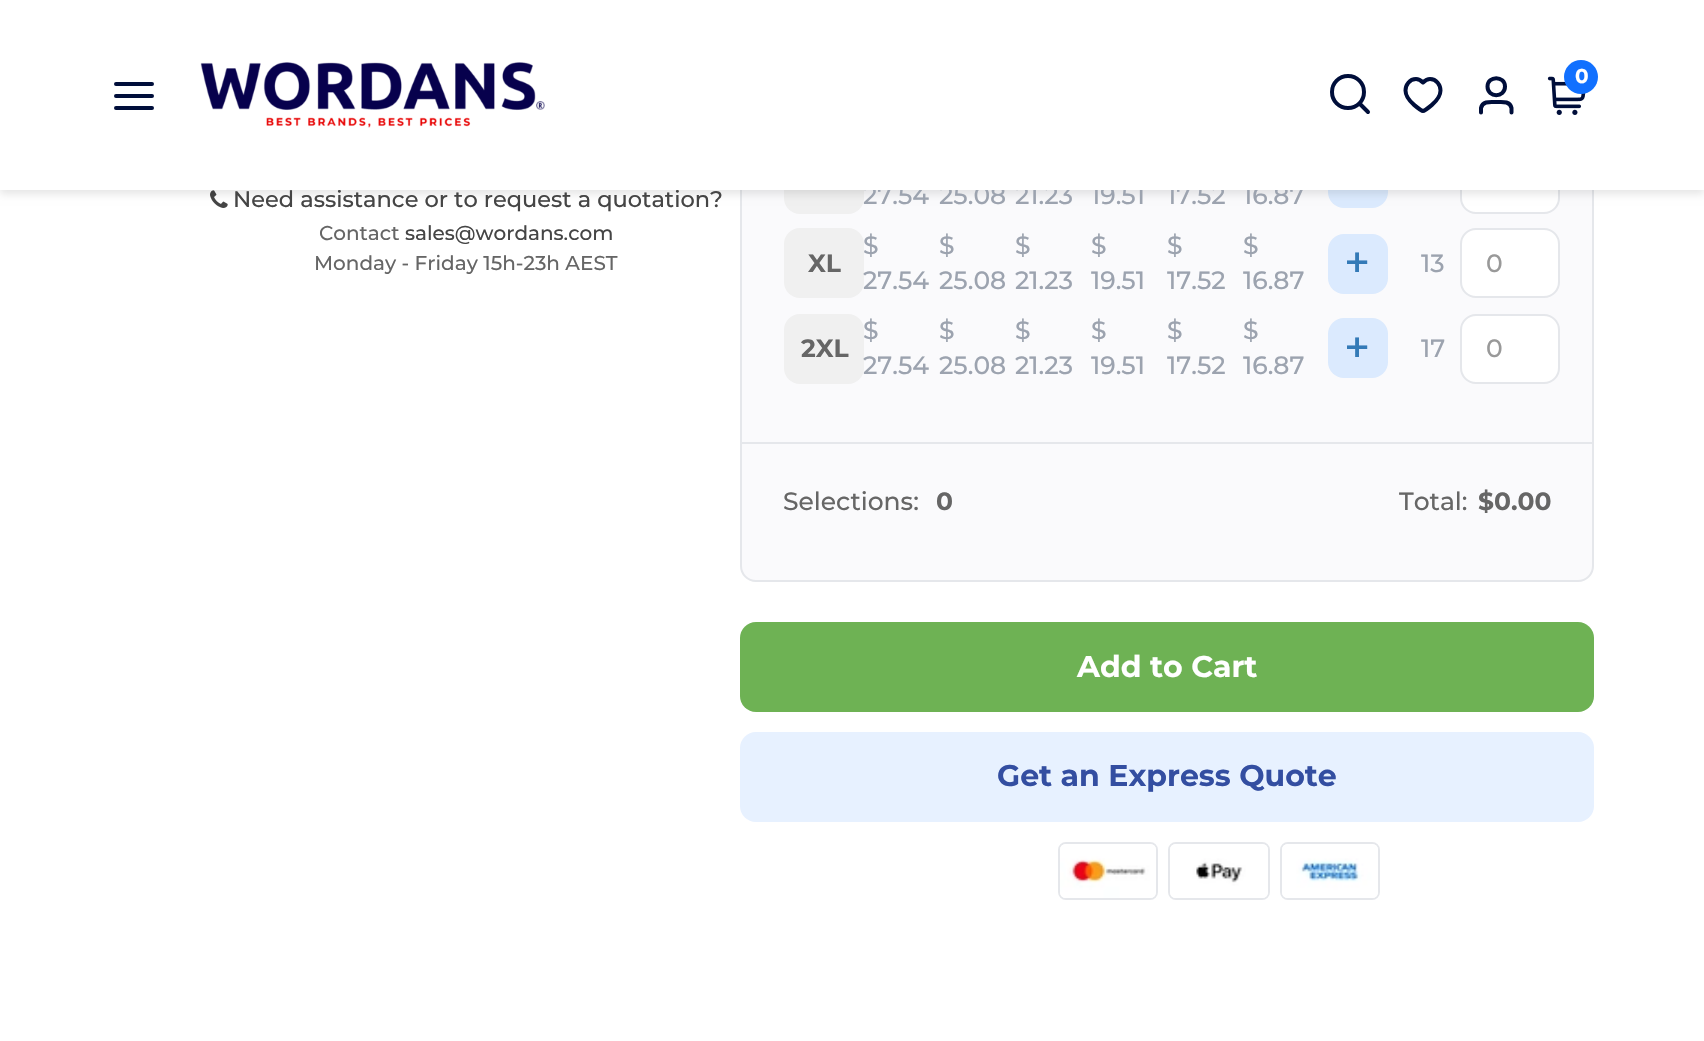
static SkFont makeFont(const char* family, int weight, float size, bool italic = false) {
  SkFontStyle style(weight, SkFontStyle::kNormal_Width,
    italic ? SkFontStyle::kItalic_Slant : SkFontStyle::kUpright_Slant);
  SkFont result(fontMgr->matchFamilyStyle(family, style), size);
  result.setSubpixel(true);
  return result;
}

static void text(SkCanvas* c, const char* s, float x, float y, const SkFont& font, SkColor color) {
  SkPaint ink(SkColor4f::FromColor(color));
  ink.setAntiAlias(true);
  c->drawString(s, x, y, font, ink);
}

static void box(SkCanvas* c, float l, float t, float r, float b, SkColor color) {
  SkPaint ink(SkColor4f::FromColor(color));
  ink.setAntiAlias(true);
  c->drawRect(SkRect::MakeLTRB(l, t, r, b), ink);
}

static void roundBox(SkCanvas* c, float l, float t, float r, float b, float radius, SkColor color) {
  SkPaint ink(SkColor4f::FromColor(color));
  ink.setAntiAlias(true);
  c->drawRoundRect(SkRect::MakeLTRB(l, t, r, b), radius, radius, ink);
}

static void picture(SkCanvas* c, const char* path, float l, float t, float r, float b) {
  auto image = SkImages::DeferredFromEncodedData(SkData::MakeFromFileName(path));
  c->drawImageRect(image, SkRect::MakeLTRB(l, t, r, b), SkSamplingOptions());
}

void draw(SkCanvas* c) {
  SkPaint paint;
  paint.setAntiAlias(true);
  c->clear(0xffffffff);
  picture(c, "img_03.png", 210, 190, 228, 208);
  paint.setColor(0xfffafafc);
  c->drawRoundRect(SkRect::MakeLTRB(741, -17, 1593, 581), 15, 15, paint);
  paint.setStyle(SkPaint::kStroke_Style);
  paint.setStrokeWidth(2);
  paint.setColor(0xffe5e7eb);
  c->drawRoundRect(SkRect::MakeLTRB(741, -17, 1593, 581), 15, 15, paint);
  roundBox(c, 784, 144, 864, 214, 16, 0xfff0f0f0);
  roundBox(c, 1328, 148, 1388, 208, 16, 0xffdbeafe);
  paint.setStyle(SkPaint::kFill_Style);
  paint.setColor(0xffffffff);
  c->drawRoundRect(SkRect::MakeLTRB(1461, 145, 1559, 213), 15, 15, paint);
  paint.setStyle(SkPaint::kStroke_Style);
  paint.setColor(0xffe5e7eb);
  c->drawRoundRect(SkRect::MakeLTRB(1461, 145, 1559, 213), 15, 15, paint);
  paint.setStyle(SkPaint::kFill_Style);
  paint.setColor(0x1a000000);
  paint.setMaskFilter(SkMaskFilter::MakeBlur(kNormal_SkBlurStyle, 4));
  c->drawRect(SkRect::MakeLTRB(0, 4, 1704, 194), paint);
  paint.setMaskFilter(nullptr);
  SkFont face1 = makeFont("Montserrat", 500, 25);
  text(c, "27.54", 863, 204, face1, 0xff9ca3af);
  text(c, "25.08", 939, 204, face1, 0xff9ca3af);
  text(c, "21.23", 1015, 204, face1, 0xff9ca3af);
  text(c, "19.51", 1091, 204, face1, 0xff9ca3af);
  text(c, "17.52", 1167, 204, face1, 0xff9ca3af);
  text(c, "16.87", 1243, 204, face1, 0xff9ca3af);
  box(c, 0, 0, 1704, 190, 0xffffffff);
  paint.setStyle(SkPaint::kStroke_Style);
  paint.setStrokeWidth(4);
  paint.setStrokeCap(SkPaint::kRound_Cap);
  paint.setStrokeJoin(SkPaint::kRound_Join);
  paint.setColor(0xff000e3a);
  c->drawPath(SkPathBuilder().moveTo(116, 96).lineTo(152, 96).moveTo(116, 84).lineTo(152, 84).moveTo(116, 108).lineTo(152, 108).detach(), paint);
  picture(c, "img_01.png", 200, 62, 545, 128);
  c->drawPath(SkPathBuilder().moveTo(1368, 112).lineTo(1359.5f, 103.5f).moveTo(1364, 92).cubicTo(1364, 101, 1357, 108, 1348, 108).cubicTo(1339, 108, 1332, 101, 1332, 92).cubicTo(1332, 83, 1339, 76, 1348, 76).cubicTo(1357, 76, 1364, 83, 1364, 92).close().detach(), paint);
  c->drawPath(SkPathBuilder().moveTo(1430, 79).cubicTo(1436.5f, 79, 1440.5f, 85, 1440.5f, 90.5f).cubicTo(1440.5f, 101.5f, 1423.5f, 111, 1423, 111).cubicTo(1422.5f, 111, 1405.5f, 101.5f, 1405.5f, 90.5f).cubicTo(1405.5f, 85, 1409.5f, 79, 1416, 79).cubicTo(1419.5f, 79, 1421.5f, 81, 1423, 82.5f).cubicTo(1424.5f, 81, 1426.5f, 79, 1430, 79).close().detach(), paint);
  c->drawPath(SkPathBuilder().moveTo(1511.5f, 112.5f).lineTo(1511.5f, 108).cubicTo(1510, 100.5f, 1501.5f, 102, 1496.5f, 102).cubicTo(1491, 102, 1482.5f, 100.5f, 1481, 108).lineTo(1481, 112.5f).moveTo(1505, 86.5f).cubicTo(1505, 98, 1487.5f, 98, 1487.5f, 86.5f).cubicTo(1487.5f, 75.5f, 1505, 75.5f, 1505, 86.5f).close().detach(), paint);
  picture(c, "img_02.png", 1547, 76, 1587, 115);
  paint.setStyle(SkPaint::kFill_Style);
  paint.setColor(0xff1170ff);
  c->drawCircle(1581, 77, 17, paint);
  SkFont face2 = makeFont("Montserrat", 700, 20);
  text(c, "0", 1575, 83, face2, 0xffffffff);
  SkFont face3 = makeFont("Montserrat", 500, 22.5f);
  text(c, "Need assistance or to request a quotation?", 233, 207, face3, 0xff454545);
  SkFont face4 = makeFont("Montserrat", 500, 20);
  text(c, "Contact", 319, 240, face4, 0xff666666);
  text(c, "sales@wordans.com", 405, 240, face4, 0xff454545);
  text(c, "Monday - Friday 15h-23h AEST", 314, 270, face4, 0xff666666);
  roundBox(c, 784, 228, 864, 298, 16, 0xfff0f0f0);
  SkFont face5 = makeFont("Montserrat", 700, 25);
  text(c, "XL", 808, 272, face5, 0xff666666);
  text(c, "$", 863, 254, face1, 0xff9ca3af);
  text(c, "27.54", 863, 289, face1, 0xff9ca3af);
  text(c, "$", 939, 254, face1, 0xff9ca3af);
  text(c, "25.08", 939, 289, face1, 0xff9ca3af);
  text(c, "$", 1015, 254, face1, 0xff9ca3af);
  text(c, "21.23", 1015, 289, face1, 0xff9ca3af);
  text(c, "$", 1091, 254, face1, 0xff9ca3af);
  text(c, "19.51", 1091, 289, face1, 0xff9ca3af);
  text(c, "$", 1167, 254, face1, 0xff9ca3af);
  text(c, "17.52", 1167, 289, face1, 0xff9ca3af);
  text(c, "$", 1243, 254, face1, 0xff9ca3af);
  text(c, "16.87", 1243, 289, face1, 0xff9ca3af);
  roundBox(c, 1328, 234, 1388, 294, 16, 0xffdbeafe);
  SkFont face6 = makeFont("Montserrat", 500, 45);
  text(c, "+", 1344, 278, face6, 0xff337ab7);
  text(c, "13", 1421, 272, face1, 0xff9ca3af);
  paint.setColor(0xffffffff);
  c->drawRoundRect(SkRect::MakeLTRB(1461, 229, 1559, 297), 15, 15, paint);
  paint.setStyle(SkPaint::kStroke_Style);
  paint.setStrokeWidth(2);
  paint.setStrokeCap(SkPaint::kButt_Cap);
  paint.setStrokeJoin(SkPaint::kMiter_Join);
  paint.setColor(0xffe5e7eb);
  c->drawRoundRect(SkRect::MakeLTRB(1461, 229, 1559, 297), 15, 15, paint);
  text(c, "0", 1486, 272, face1, 0xff999999);
  roundBox(c, 784, 314, 864, 384, 16, 0xfff0f0f0);
  text(c, "2XL", 801, 357, face5, 0xff666666);
  text(c, "$", 863, 339, face1, 0xff9ca3af);
  text(c, "27.54", 863, 374, face1, 0xff9ca3af);
  text(c, "$", 939, 339, face1, 0xff9ca3af);
  text(c, "25.08", 939, 374, face1, 0xff9ca3af);
  text(c, "$", 1015, 339, face1, 0xff9ca3af);
  text(c, "21.23", 1015, 374, face1, 0xff9ca3af);
  text(c, "$", 1091, 339, face1, 0xff9ca3af);
  text(c, "19.51", 1091, 374, face1, 0xff9ca3af);
  text(c, "$", 1167, 339, face1, 0xff9ca3af);
  text(c, "17.52", 1167, 374, face1, 0xff9ca3af);
  text(c, "$", 1243, 339, face1, 0xff9ca3af);
  text(c, "16.87", 1243, 374, face1, 0xff9ca3af);
  roundBox(c, 1328, 318, 1388, 378, 16, 0xffdbeafe);
  text(c, "+", 1344, 363, face6, 0xff337ab7);
  text(c, "17", 1421, 357, face1, 0xff9ca3af);
  paint.setStyle(SkPaint::kFill_Style);
  paint.setColor(0xffffffff);
  c->drawRoundRect(SkRect::MakeLTRB(1461, 315, 1559, 383), 15, 15, paint);
  paint.setStyle(SkPaint::kStroke_Style);
  paint.setColor(0xffe5e7eb);
  c->drawRoundRect(SkRect::MakeLTRB(1461, 315, 1559, 383), 15, 15, paint);
  text(c, "0", 1486, 357, face1, 0xff999999);
  box(c, 742, 442, 1592, 444, 0xffe5e7eb);
  text(c, "Selections:", 783, 510, face1, 0xff666666);
  text(c, "0", 936, 510, face5, 0xff666666);
  text(c, "Total:", 1399, 510, face1, 0xff666666);
  text(c, "$0.00", 1478, 510, face5, 0xff666666);
  roundBox(c, 740, 622, 1594, 712, 16, 0xff6eb254);
  SkFont face7 = makeFont("Montserrat", 700, 30);
  text(c, "Add to Cart", 1077, 677, face7, 0xffffffff);
  roundBox(c, 740, 732, 1594, 822, 16, 0xffe7f1ff);
  text(c, "Get an Express Quote", 997, 786, face7, 0xff334ea1);
  c->drawRoundRect(SkRect::MakeLTRB(1059, 843, 1157, 899), 7, 7, paint);
  picture(c, "img_04.png", 1060, 844, 1156, 898);
  c->drawRoundRect(SkRect::MakeLTRB(1169, 843, 1269, 899), 7, 7, paint);
  picture(c, "img_05.png", 1170, 844, 1268, 898);
  c->drawRoundRect(SkRect::MakeLTRB(1281, 843, 1379, 899), 7, 7, paint);
  picture(c, "img_06.png", 1282, 844, 1378, 898);
}
